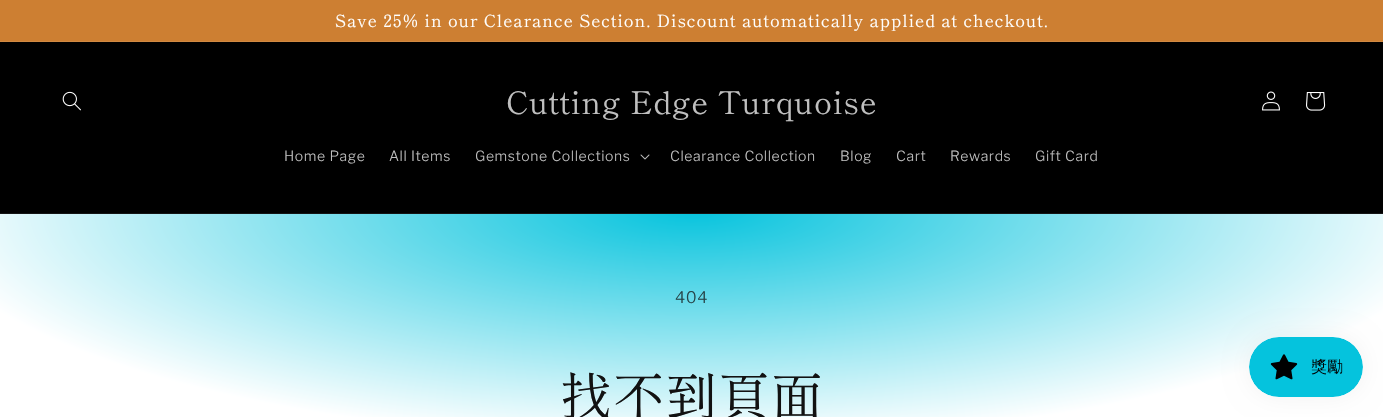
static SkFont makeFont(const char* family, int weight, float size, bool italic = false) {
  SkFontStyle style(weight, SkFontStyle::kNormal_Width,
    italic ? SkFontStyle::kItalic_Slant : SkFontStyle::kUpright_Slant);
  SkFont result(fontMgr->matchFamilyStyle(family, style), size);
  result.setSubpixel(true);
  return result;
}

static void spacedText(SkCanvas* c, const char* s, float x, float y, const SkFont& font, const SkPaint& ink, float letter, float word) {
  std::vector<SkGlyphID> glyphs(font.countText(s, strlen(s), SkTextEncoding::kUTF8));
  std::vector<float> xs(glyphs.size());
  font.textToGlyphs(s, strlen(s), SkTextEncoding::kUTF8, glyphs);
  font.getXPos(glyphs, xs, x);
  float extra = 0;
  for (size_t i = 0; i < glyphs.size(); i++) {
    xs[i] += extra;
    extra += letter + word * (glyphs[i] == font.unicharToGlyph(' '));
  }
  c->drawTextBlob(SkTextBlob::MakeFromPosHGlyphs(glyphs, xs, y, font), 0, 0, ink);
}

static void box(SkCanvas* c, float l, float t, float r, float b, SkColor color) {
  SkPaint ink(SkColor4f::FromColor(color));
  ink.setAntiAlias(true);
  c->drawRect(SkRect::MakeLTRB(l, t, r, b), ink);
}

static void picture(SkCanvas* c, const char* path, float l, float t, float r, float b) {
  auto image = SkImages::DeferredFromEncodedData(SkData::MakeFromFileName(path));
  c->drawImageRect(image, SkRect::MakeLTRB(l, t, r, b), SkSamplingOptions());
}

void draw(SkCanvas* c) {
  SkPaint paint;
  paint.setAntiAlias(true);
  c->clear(0xffffffff);
  {
    const SkColor colors[] = {0xff05c3dd, 0xffffffff, 0xffffffff};
    const float stops[] = {0, 0.79f, 0.97f};
    SkMatrix m = SkMatrix::Translate(692, 209).preScale(978, 295);
    paint.setShader(SkGradientShader::MakeRadial({0, 0}, 1, colors, stops, 3, SkTileMode::kClamp, 0, &m));
    paint.setAlpha(255);
  }
  c->drawRect(SkRect::MakeLTRB(0, 214, 1383, 417), paint);
  box(c, 0, 0, 1383, 41, 0xffcd7f32);
  box(c, 0, 41, 1383, 42, 0xffd18942);
  SkFont face1 = makeFont("Shippori Mincho", 400, 16.9f);
  paint.setShader(nullptr);
  paint.setColor(0xffffffff);
  spacedText(c, "Save 25% in our Clearance Section. Discount automatically applied at checkout.", 335, 27, face1, paint, 1, 0);
  box(c, 0, 42, 1383, 213, 0xff000000);
  box(c, 0, 213, 1383, 214, 0xff141414);
  picture(c, "img_01.png", 62, 91, 81, 111);
  SkFont face2 = makeFont("Shippori Mincho", 400, 31.25f);
  paint.setColor(0xffbfbfbf);
  spacedText(c, "Cutting Edge Turquoise", 506, 114, face2, paint, 0.75f, 0);
  picture(c, "img_02.png", 1262, 91, 1280, 111);
  picture(c, "img_03.png", 1306, 92, 1326, 111);
  SkFont face3 = makeFont("Libre Franklin", 300, 14);
  spacedText(c, "Home Page", 284, 161, face3, paint, 0.6f, 0);
  spacedText(c, "All Items", 389, 161, face3, paint, 0.6f, 0);
  spacedText(c, "Gemstone Collections", 475, 161, face3, paint, 0.6f, 0);
  picture(c, "img_04.png", 640, 154, 650, 160);
  spacedText(c, "Clearance Collection", 670, 161, face3, paint, 0.6f, 0);
  spacedText(c, "Blog", 840, 161, face3, paint, 0.6f, 0);
  spacedText(c, "Cart", 896, 161, face3, paint, 0.6f, 0);
  spacedText(c, "Rewards", 950, 161, face3, paint, 0.6f, 0);
  spacedText(c, "Gift Card", 1035, 161, face3, paint, 0.6f, 0);
  SkFont face4 = makeFont("Libre Franklin", 300, 16);
  paint.setColor(0xff264448);
  spacedText(c, "404", 675, 303, face4, paint, 0.6f, 0);
  SkFont face5 = makeFont("Shippori Mincho", 400, 52);
  paint.setColor(0xff121212);
  spacedText(c, "找不到頁面", 560, 416, face5, paint, 0.75f, 0);
  paint.setColor(0x0d000000);
  paint.setMaskFilter(SkMaskFilter::MakeBlur(kNormal_SkBlurStyle, 12.5f));
  c->drawRoundRect(SkRect::MakeLTRB(1249, 337, 1363, 397), 30, 30, paint);
  paint.setMaskFilter(nullptr);
  picture(c, "img_05.png", 1249, 337, 1363, 397);
}
